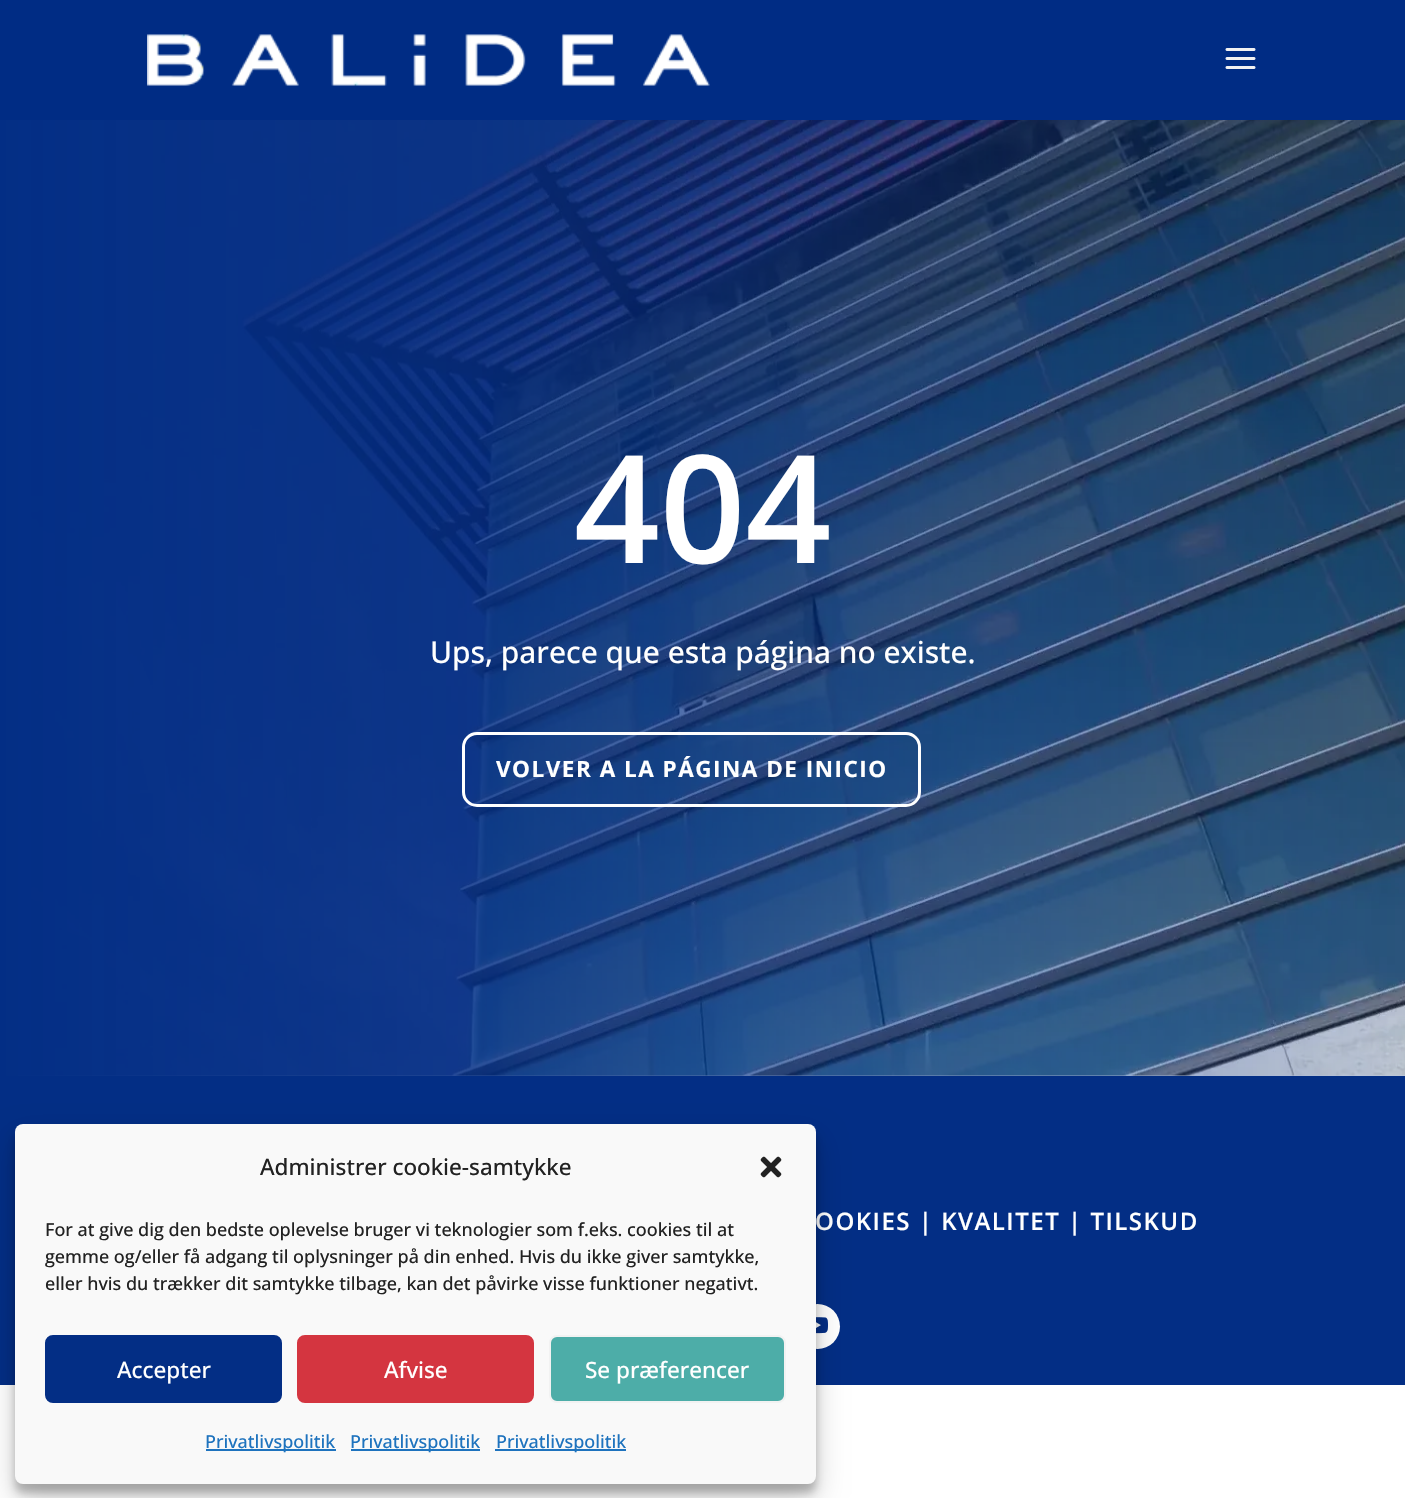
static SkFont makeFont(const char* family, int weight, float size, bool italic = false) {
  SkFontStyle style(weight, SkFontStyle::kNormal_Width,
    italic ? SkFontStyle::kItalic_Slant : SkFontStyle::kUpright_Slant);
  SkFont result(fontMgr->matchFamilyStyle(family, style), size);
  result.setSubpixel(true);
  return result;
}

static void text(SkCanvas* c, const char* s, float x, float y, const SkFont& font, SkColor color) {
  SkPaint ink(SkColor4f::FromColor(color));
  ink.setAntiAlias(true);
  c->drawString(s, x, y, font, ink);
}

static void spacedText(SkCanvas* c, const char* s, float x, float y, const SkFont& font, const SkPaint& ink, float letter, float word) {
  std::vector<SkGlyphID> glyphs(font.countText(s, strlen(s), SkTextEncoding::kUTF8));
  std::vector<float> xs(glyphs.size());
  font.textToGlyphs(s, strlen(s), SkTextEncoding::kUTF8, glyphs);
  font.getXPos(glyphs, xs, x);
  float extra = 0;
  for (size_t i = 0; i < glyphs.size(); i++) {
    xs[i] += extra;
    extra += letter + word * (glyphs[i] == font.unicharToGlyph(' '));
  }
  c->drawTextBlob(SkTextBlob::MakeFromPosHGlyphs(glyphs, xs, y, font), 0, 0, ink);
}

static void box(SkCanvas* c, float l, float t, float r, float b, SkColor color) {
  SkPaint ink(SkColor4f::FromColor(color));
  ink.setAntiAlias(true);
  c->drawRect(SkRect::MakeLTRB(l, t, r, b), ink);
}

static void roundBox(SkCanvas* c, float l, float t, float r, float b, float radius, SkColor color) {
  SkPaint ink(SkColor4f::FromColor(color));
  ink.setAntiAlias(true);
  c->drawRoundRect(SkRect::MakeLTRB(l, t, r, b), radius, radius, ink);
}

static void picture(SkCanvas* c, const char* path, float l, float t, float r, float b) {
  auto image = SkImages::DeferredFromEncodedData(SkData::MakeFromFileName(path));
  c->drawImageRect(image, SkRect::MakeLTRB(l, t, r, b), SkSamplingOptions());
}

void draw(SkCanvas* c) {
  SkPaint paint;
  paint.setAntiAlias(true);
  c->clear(0xffffffff);
  box(c, 0, 0, 1405, 120, 0xff002c84);
  picture(c, "img_01.png", 147, 34, 710, 86);
  picture(c, "img_02.png", 1225, 48, 1256, 69);
  picture(c, "img_03.png", 18, 120, 1405, 1076);
  {
    const SkColor colors[] = {0xff032e85, 0xd9032e85, 0x80032e85, 0x40032e85};
    const float stops[] = {0, 0.33f, 0.66f, 1};
    const SkPoint ends[] = {{0, 540}, {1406, 540}};
    paint.setShader(SkGradientShader::MakeLinear(ends, colors, stops, 4, SkTileMode::kClamp));
    paint.setAlpha(255);
  }
  c->drawRect(SkRect::MakeLTRB(0, 120, 1405, 1076), paint);
  SkFont face1 = makeFont("Open Sans", 600, 150);
  text(c, "404", 574, 563, face1, 0xffffffff);
  SkFont face2 = makeFont("Open Sans", 500, 30);
  text(c, "Ups, parece que esta página no existe.", 430, 663, face2, 0xffffffff);
  paint.setStyle(SkPaint::kStroke_Style);
  paint.setStrokeWidth(3);
  paint.setShader(nullptr);
  paint.setColor(0xffffffff);
  c->drawRoundRect(SkRect::MakeLTRB(463.5f, 733.5f, 919.5f, 805.5f), 13.5f, 13.5f, paint);
  SkFont face3 = makeFont("Open Sans", 700, 22.5f);
  paint.setStyle(SkPaint::kFill_Style);
  spacedText(c, "VOLVER A LA PÁGINA DE INICIO", 496, 777, face3, paint, 1.5f, 0);
  box(c, 0, 1076, 1405, 1385, 0xff032e85);
  SkFont face4 = makeFont("Open Sans", 600, 24);
  spacedText(c, "OOKIES | KVALITET | TILSKUD", 815, 1230, face4, paint, 1.5f, 0);
  c->drawCircle(817.5f, 1326.5f, 22.5f, paint);
  picture(c, "img_04.png", 816, 1317, 828, 1334);
  paint.setColor(0x3b000000);
  paint.setMaskFilter(SkMaskFilter::MakeBlur(kNormal_SkBlurStyle, 4.5f));
  c->drawRoundRect(SkRect::MakeLTRB(15, 1133, 816, 1493), 8, 8, paint);
  paint.setMaskFilter(nullptr);
  paint.setColor(0x30000000);
  paint.setMaskFilter(SkMaskFilter::MakeBlur(kNormal_SkBlurStyle, 15));
  c->drawRoundRect(SkRect::MakeLTRB(15, 1139, 816, 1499), 8, 8, paint);
  paint.setMaskFilter(nullptr);
  roundBox(c, 15, 1124, 816, 1484, 8, 0xfff9f9f9);
  SkFont face5 = makeFont("Open Sans", 500, 22.5f);
  text(c, "Administrer cookie-samtykke", 260, 1175, face5, 0xff222222);
  picture(c, "img_05.png", 760, 1156, 782, 1178);
  SkFont face6 = makeFont("Open Sans", 500, 18);
  text(c, "For at give dig den bedste oplevelse bruger vi teknologier som f.eks. cookies til at", 45, 1236, face6, 0xff222222);
  text(c, "gemme og/eller få adgang til oplysninger på din enhed. Hvis du ikke giver samtykke,", 45, 1263, face6, 0xff222222);
  text(c, "eller hvis du trækker dit samtykke tilbage, kan det påvirke visse funktioner negativt.", 45, 1290, face6, 0xff222222);
  paint.setColor(0xff032e85);
  c->drawRoundRect(SkRect::MakeLTRB(46, 1336, 281, 1402), 7, 7, paint);
  paint.setStyle(SkPaint::kStroke_Style);
  paint.setStrokeWidth(2);
  c->drawRoundRect(SkRect::MakeLTRB(46, 1336, 281, 1402), 7, 7, paint);
  text(c, "Accepter", 117, 1378, face5, 0xffffffff);
  paint.setStyle(SkPaint::kFill_Style);
  paint.setColor(0xffd43540);
  c->drawRoundRect(SkRect::MakeLTRB(298, 1336, 533, 1402), 7, 7, paint);
  paint.setStyle(SkPaint::kStroke_Style);
  c->drawRoundRect(SkRect::MakeLTRB(298, 1336, 533, 1402), 7, 7, paint);
  text(c, "Afvise", 384, 1378, face5, 0xffffffff);
  paint.setStyle(SkPaint::kFill_Style);
  paint.setColor(0xff4dada8);
  c->drawRoundRect(SkRect::MakeLTRB(550, 1336, 785, 1402), 7, 7, paint);
  paint.setStyle(SkPaint::kStroke_Style);
  paint.setColor(0xfff2f2f2);
  c->drawRoundRect(SkRect::MakeLTRB(550, 1336, 785, 1402), 7, 7, paint);
  text(c, "Se præferencer", 585, 1378, face5, 0xffffffff);
  box(c, 206, 1449, 336, 1451, 0xff1e73be);
  text(c, "Privatlivspolitik", 205, 1448, face6, 0xff1e73be);
  box(c, 351, 1449, 480, 1451, 0xff1e73be);
  text(c, "Privatlivspolitik", 350, 1448, face6, 0xff1e73be);
  box(c, 495, 1449, 626, 1451, 0xff1e73be);
  text(c, "Privatlivspolitik", 496, 1448, face6, 0xff1e73be);
}
